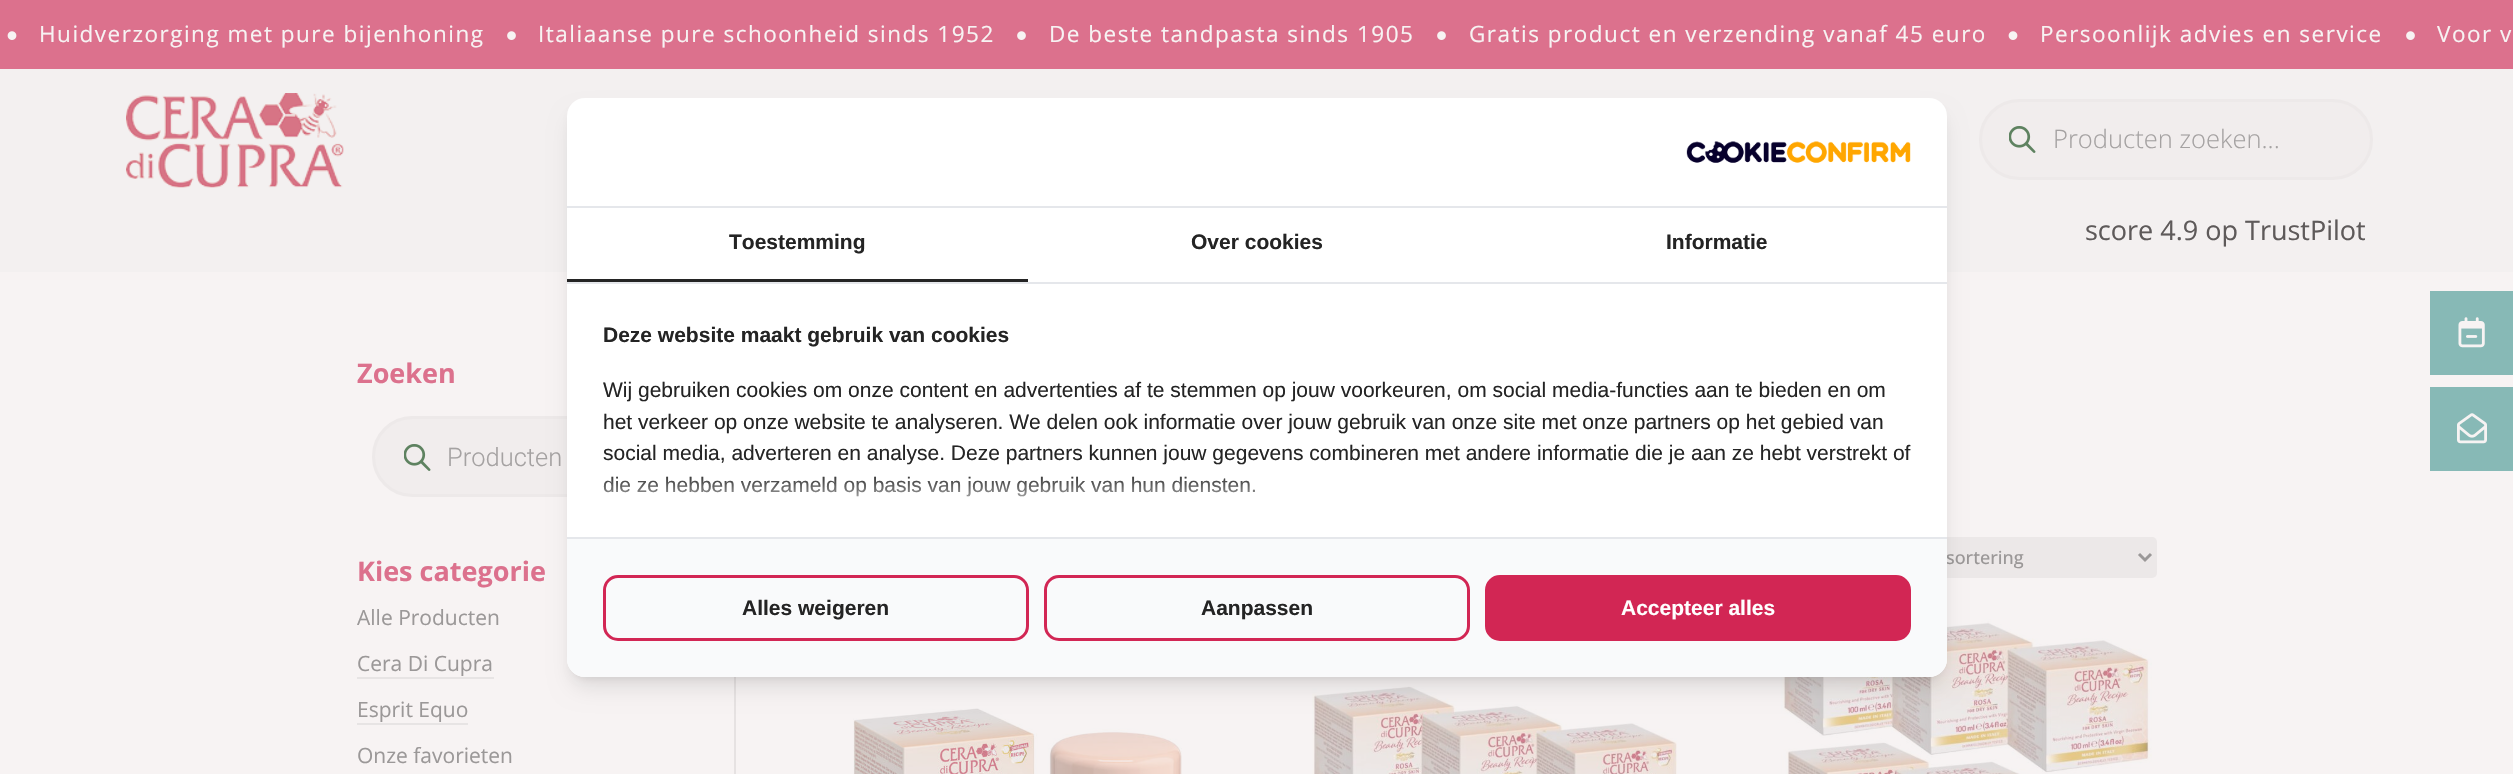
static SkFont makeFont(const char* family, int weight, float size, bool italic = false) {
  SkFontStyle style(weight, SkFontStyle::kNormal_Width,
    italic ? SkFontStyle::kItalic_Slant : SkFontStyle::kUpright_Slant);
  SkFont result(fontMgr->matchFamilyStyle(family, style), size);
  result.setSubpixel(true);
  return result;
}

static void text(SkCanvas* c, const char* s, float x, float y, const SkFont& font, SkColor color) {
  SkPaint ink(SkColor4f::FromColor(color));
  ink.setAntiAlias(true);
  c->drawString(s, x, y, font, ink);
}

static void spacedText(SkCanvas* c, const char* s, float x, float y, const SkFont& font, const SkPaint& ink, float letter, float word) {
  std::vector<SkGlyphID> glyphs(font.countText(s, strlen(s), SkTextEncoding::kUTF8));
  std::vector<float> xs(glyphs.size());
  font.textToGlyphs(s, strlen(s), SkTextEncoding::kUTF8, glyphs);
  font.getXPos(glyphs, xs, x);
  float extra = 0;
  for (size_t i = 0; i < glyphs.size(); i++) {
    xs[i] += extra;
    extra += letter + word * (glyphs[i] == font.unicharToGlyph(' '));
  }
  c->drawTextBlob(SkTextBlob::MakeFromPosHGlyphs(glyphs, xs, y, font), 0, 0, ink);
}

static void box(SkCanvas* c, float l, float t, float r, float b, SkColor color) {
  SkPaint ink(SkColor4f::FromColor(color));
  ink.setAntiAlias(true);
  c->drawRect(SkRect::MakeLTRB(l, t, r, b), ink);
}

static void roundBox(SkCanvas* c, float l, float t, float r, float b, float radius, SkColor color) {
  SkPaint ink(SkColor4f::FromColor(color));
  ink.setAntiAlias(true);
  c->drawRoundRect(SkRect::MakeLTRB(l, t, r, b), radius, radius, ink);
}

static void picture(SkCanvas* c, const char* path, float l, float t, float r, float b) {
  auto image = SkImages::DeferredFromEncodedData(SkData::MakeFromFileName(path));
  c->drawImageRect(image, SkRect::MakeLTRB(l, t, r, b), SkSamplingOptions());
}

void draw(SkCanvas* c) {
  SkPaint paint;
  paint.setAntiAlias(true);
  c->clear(0xfff7f3f3);
  box(c, 0, 0, 2513, 69, 0xffdc718d);
  picture(c, "img_01.png", 7, 31, 17, 40);
  SkFont face1 = makeFont("Open Sans", 400, 22.5f);
  paint.setColor(0xfff7f3f3);
  spacedText(c, "Huidverzorging met pure bijenhoning", 39, 42, face1, paint, 1.5f, 0);
  picture(c, "img_02.png", 507, 31, 516, 40);
  spacedText(c, "Italiaanse pure schoonheid sinds 1952", 538, 42, face1, paint, 1.5f, 0);
  picture(c, "img_02.png", 1017, 31, 1026, 40);
  spacedText(c, "De beste tandpasta sinds 1905", 1049, 42, face1, paint, 1.5f, 0);
  picture(c, "img_02.png", 1437, 31, 1446, 40);
  spacedText(c, "Gratis product en verzending vanaf 45 euro", 1469, 42, face1, paint, 1.5f, 0);
  picture(c, "img_01.png", 2008, 31, 2018, 40);
  spacedText(c, "Persoonlijk advies en service", 2040, 42, face1, paint, 1.5f, 0);
  picture(c, "img_02.png", 2406, 31, 2415, 40);
  spacedText(c, "Voor v", 2437, 42, face1, paint, 1.5f, 0);
  box(c, 0, 69, 2513, 272, 0xfff3f0f0);
  picture(c, "img_03.png", 126, 93, 344, 188);
  paint.setColor(0xfff1eded);
  c->drawRoundRect(SkRect::MakeLTRB(1980.5f, 100.5f, 2371.5f, 178.5f), 39, 39, paint);
  paint.setStyle(SkPaint::kStroke_Style);
  paint.setStrokeWidth(3);
  paint.setColor(0xffede9e9);
  c->drawRoundRect(SkRect::MakeLTRB(1980.5f, 100.5f, 2371.5f, 178.5f), 39, 39, paint);
  picture(c, "img_04.png", 2009, 126, 2036, 153);
  SkFont face2 = makeFont("Open Sans", 300, 25.5f);
  text(c, "Producten zoeken...", 2053, 148, face2, 0xffa5a2a2);
  SkFont face3 = makeFont("Open Sans", 400, 27);
  text(c, "score 4.9 op TrustPilot", 2085, 240, face3, 0xff5e5a5a);
  SkFont face4 = makeFont("Open Sans", 700, 27);
  text(c, "Zoeken", 357, 383, face4, 0xffdc718d);
  paint.setStyle(SkPaint::kFill_Style);
  paint.setColor(0xfff1eded);
  c->drawRoundRect(SkRect::MakeLTRB(373.5f, 417.5f, 685.5f, 495.5f), 39, 39, paint);
  paint.setStyle(SkPaint::kStroke_Style);
  paint.setColor(0xffede9e9);
  c->drawRoundRect(SkRect::MakeLTRB(373.5f, 417.5f, 685.5f, 495.5f), 39, 39, paint);
  picture(c, "img_04.png", 404, 444, 431, 471);
  SkFont face5 = makeFont("Roboto", 300, 25.5f);
  text(c, "Producten", 447, 466, face5, 0xffa5a2a2);
  text(c, "Kies categorie", 357, 581, face4, 0xffdc718d);
  SkFont face6 = makeFont("Open Sans", 400, 21);
  text(c, "Alle Producten", 357, 625, face6, 0xff9b9898);
  text(c, "Cera Di Cupra", 357, 671, face6, 0xff9b9898);
  box(c, 357, 677, 494, 679, 0xffe7e4e4);
  text(c, "Esprit Equo", 357, 717, face6, 0xff9b9898);
  box(c, 357, 723, 468, 725, 0xffe7e4e4);
  text(c, "Onze favorieten", 357, 763, face6, 0xff9b9898);
  roundBox(c, 1835, 537, 2157, 578, 5, 0xffece8e8);
  paint.setColor(0xff9b9898);
  c->drawPath(SkPathBuilder().moveTo(2139, 554).lineTo(2145, 560).lineTo(2151, 554).detach(), paint);
  SkFont face7 = makeFont("Open Sans", 500, 18);
  text(c, "sortering", 1946, 564, face7, 0xff9b9898);
  picture(c, "img_05.png", 853, 708, 1182, 774);
  picture(c, "img_06.png", 1312, 686, 1677, 774);
  picture(c, "img_07.png", 1781, 603, 2152, 774);
  box(c, 734, 677, 736, 774, 0xffe6e2e2);
  paint.setStyle(SkPaint::kFill_Style);
  paint.setColor(0x1a000000);
  paint.setMaskFilter(SkMaskFilter::MakeBlur(kNormal_SkBlurStyle, 4.5f));
  c->drawRoundRect(SkRect::MakeLTRB(573, 110, 1941, 677), 12, 12, paint);
  paint.setMaskFilter(nullptr);
  paint.setMaskFilter(SkMaskFilter::MakeBlur(kNormal_SkBlurStyle, 11));
  c->drawRoundRect(SkRect::MakeLTRB(572, 117, 1943, 687), 14, 14, paint);
  paint.setMaskFilter(nullptr);
  roundBox(c, 567, 98, 1947, 677, 18, 0xffffffff);
  box(c, 567, 206, 1947, 208, 0xffe5e7eb);
  picture(c, "img_08.png", 1686, 141, 1911, 163);
  box(c, 567, 282, 1947, 284, 0xffe5e7eb);
  box(c, 567, 279, 1028, 282, 0xff242424);
  SkFont face8 = makeFont("Liberation Sans", 700, 21);
  text(c, "Toestemming", 729, 249, face8, 0xff242424);
  text(c, "Over cookies", 1191, 249, face8, 0xff242424);
  text(c, "Informatie", 1666, 249, face8, 0xff242424);
  text(c, "Deze website maakt gebruik van cookies", 603, 342, face8, 0xff242424);
  SkFont face9 = makeFont("Liberation Sans", 400, 21);
  text(c, "Wij gebruiken cookies om onze content en advertenties af te stemmen op jouw voorkeuren, om social media-functies aan te bieden en om", 603, 397, face9, 0xff242424);
  text(c, "het verkeer op onze website te analyseren. We delen ook informatie over jouw gebruik van onze site met onze partners op het gebied van", 603, 429, face9, 0xff242424);
  text(c, "social media, adverteren en analyse. Deze partners kunnen jouw gegevens combineren met andere informatie die je aan ze hebt verstrekt of", 603, 460, face9, 0xff242424);
  text(c, "die ze hebben verzameld op basis van jouw gebruik van hun diensten.", 603, 492, face9, 0xff242424);
  c->save();
  c->clipPath(SkPathBuilder().moveTo(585, 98).lineTo(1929, 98).cubicTo(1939, 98, 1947, 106, 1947, 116).lineTo(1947, 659).cubicTo(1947, 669, 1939, 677, 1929, 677).lineTo(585, 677).cubicTo(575, 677, 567, 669, 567, 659).lineTo(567, 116).cubicTo(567, 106, 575, 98, 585, 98).close().detach(), true);
  paint.setColor(0xffffffff);
  paint.setMaskFilter(SkMaskFilter::MakeBlur(kNormal_SkBlurStyle, 15));
  c->drawRect(SkRect::MakeLTRB(555, 495, 1959, 659), paint);
  paint.setMaskFilter(nullptr);
  c->restore();
  paint.setColor(0xfff9fafb);
  c->drawPath(SkPathBuilder().moveTo(567, 537).lineTo(1947, 537).lineTo(1947, 659).cubicTo(1947, 669, 1939, 677, 1929, 677).lineTo(585, 677).cubicTo(575, 677, 567, 669, 567, 659).close().detach(), paint);
  box(c, 567, 537, 1947, 539, 0xffe5e7eb);
  paint.setStyle(SkPaint::kStroke_Style);
  paint.setColor(0xffd22654);
  c->drawRoundRect(SkRect::MakeLTRB(604.5f, 576.5f, 1027.5f, 639.5f), 13.5f, 13.5f, paint);
  text(c, "Alles weigeren", 742, 615, face8, 0xff242424);
  c->drawRoundRect(SkRect::MakeLTRB(1045.5f, 576.5f, 1468.5f, 639.5f), 13.5f, 13.5f, paint);
  text(c, "Aanpassen", 1201, 615, face8, 0xff242424);
  paint.setStyle(SkPaint::kFill_Style);
  c->drawRoundRect(SkRect::MakeLTRB(1486.5f, 576.5f, 1909.5f, 639.5f), 13.5f, 13.5f, paint);
  paint.setStyle(SkPaint::kStroke_Style);
  c->drawRoundRect(SkRect::MakeLTRB(1486.5f, 576.5f, 1909.5f, 639.5f), 13.5f, 13.5f, paint);
  text(c, "Accepteer alles", 1621, 615, face8, 0xffffffff);
  box(c, 2430, 291, 2513, 375, 0xff87b9b6);
  picture(c, "img_09.png", 2458, 317, 2485, 348);
  box(c, 2430, 387, 2513, 471, 0xff87b9b6);
  picture(c, "img_10.png", 2457, 413, 2487, 444);
}
